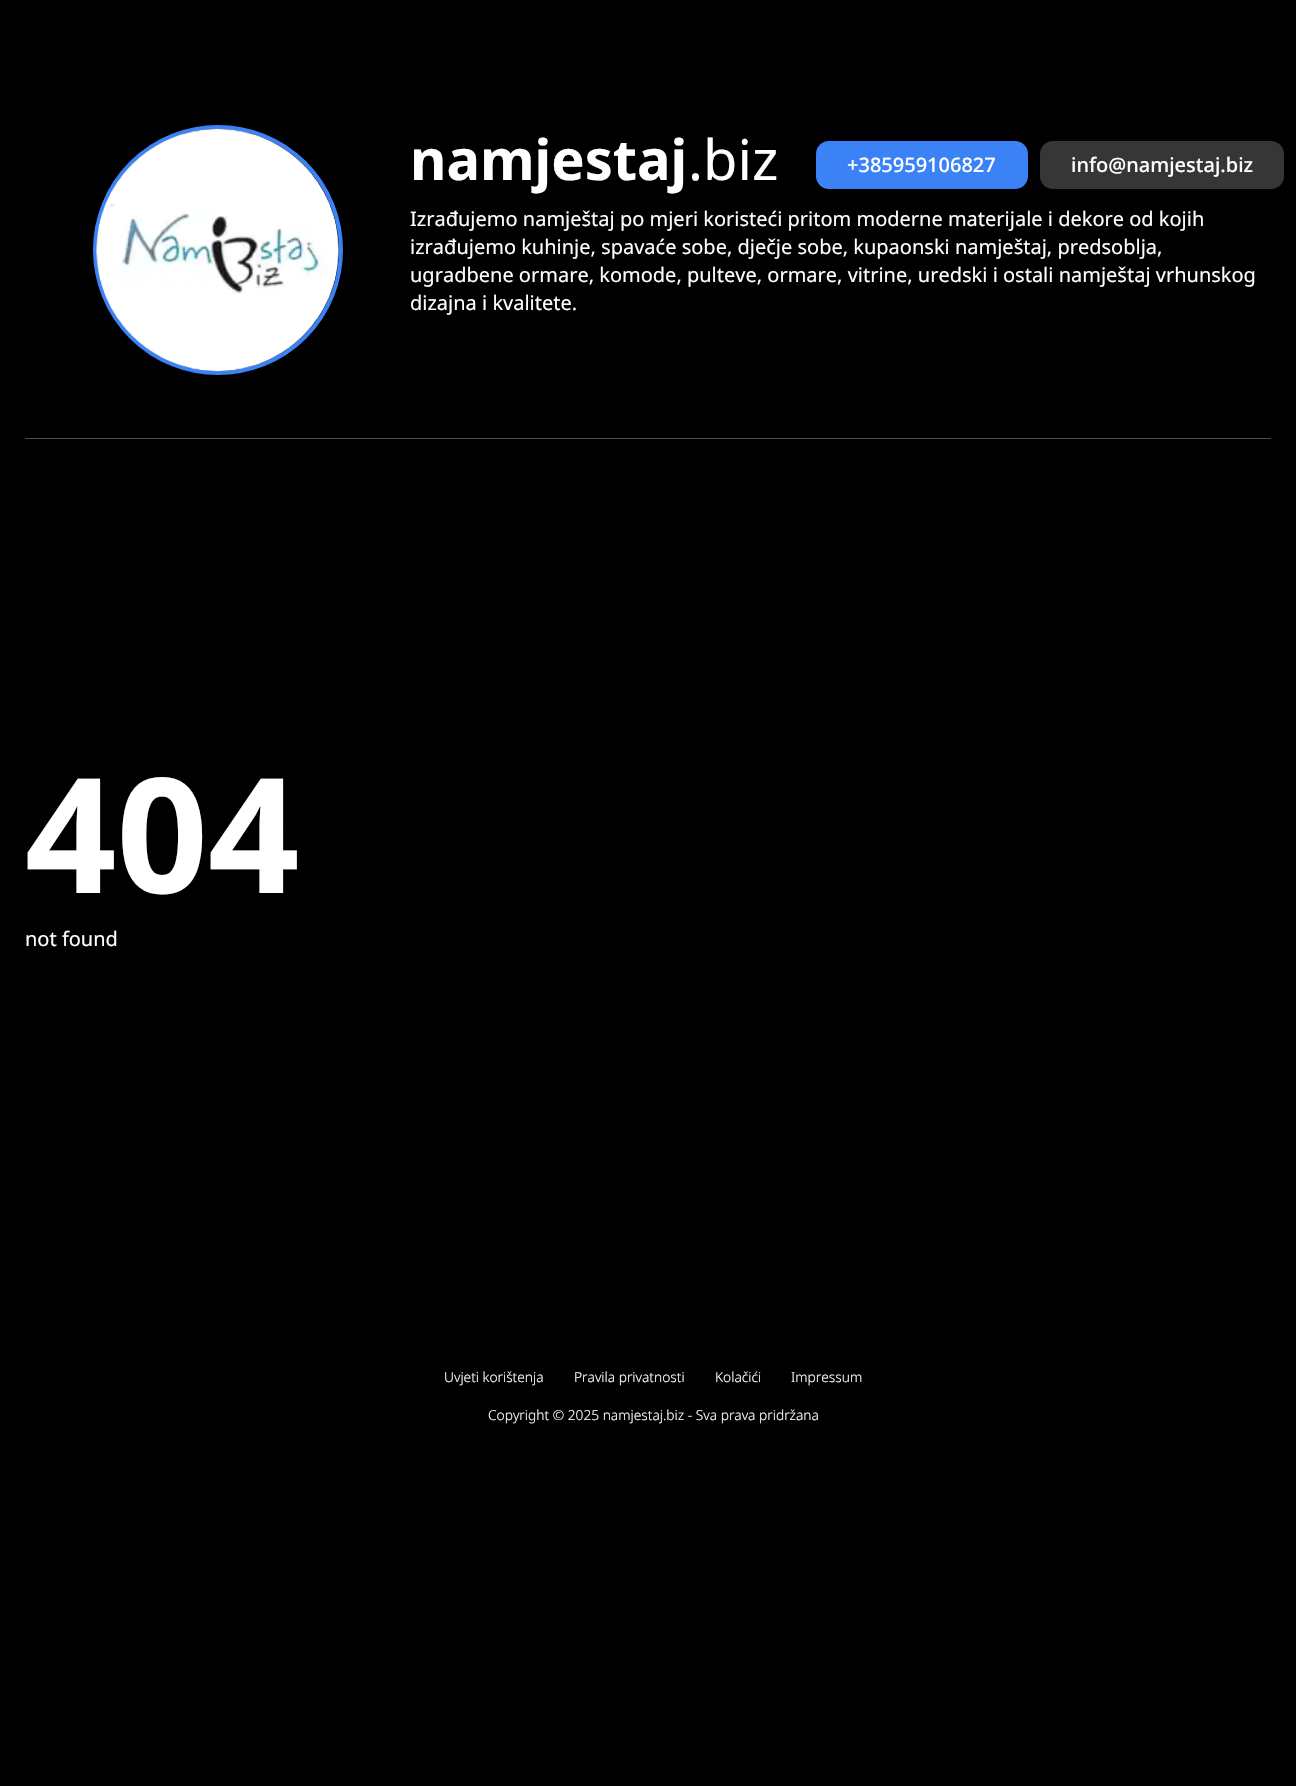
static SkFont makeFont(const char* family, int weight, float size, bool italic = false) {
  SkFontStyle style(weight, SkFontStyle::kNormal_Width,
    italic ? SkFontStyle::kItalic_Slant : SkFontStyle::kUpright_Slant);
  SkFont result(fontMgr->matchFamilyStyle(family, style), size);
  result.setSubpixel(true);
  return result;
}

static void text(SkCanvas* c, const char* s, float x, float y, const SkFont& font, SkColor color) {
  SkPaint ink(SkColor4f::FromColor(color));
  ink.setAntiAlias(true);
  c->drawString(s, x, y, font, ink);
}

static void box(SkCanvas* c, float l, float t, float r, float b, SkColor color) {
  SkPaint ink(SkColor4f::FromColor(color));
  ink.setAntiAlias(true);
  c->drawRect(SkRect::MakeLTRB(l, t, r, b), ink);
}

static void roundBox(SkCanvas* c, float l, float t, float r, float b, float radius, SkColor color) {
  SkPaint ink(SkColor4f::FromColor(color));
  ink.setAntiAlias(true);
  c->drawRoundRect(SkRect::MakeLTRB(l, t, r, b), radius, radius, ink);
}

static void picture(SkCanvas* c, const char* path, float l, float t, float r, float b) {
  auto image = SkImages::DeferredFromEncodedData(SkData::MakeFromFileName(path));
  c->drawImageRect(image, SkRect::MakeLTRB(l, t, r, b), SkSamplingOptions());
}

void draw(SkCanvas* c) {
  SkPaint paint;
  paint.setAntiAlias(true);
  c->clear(0xff000000);
  paint.setStyle(SkPaint::kStroke_Style);
  paint.setStrokeWidth(4);
  paint.setColor(0xff3b82f6);
  c->drawCircle(218, 250, 123, paint);
  picture(c, "img_01.png", 96, 128, 339, 372);
  SkFont face1 = makeFont("Noto Sans", 700, 56);
  text(c, "namjestaj", 410, 180, face1, 0xffffffff);
  SkFont face2 = makeFont("Noto Sans", 400, 56);
  text(c, ".biz", 688, 180, face2, 0xffffffff);
  roundBox(c, 816, 141, 1028, 189, 13, 0xff3b82f6);
  SkFont face3 = makeFont("Noto Sans", 500, 20);
  text(c, "+385959106827", 847, 172, face3, 0xffffffff);
  roundBox(c, 1040, 141, 1284, 189, 13, 0xff363636);
  text(c, "info@namjestaj.biz", 1071, 172, face3, 0xffffffff);
  SkFont face4 = makeFont("Noto Sans", 400, 20);
  text(c, "Izrađujemo namještaj po mjeri koristeći pritom moderne materijale i dekore od kojih", 410, 226, face4, 0xffffffff);
  text(c, "izrađujemo kuhinje, spavaće sobe, dječje sobe, kupaonski namještaj, predsoblja,", 410, 254, face4, 0xffffffff);
  text(c, "ugradbene ormare, komode, pulteve, ormare, vitrine, uredski i ostali namještaj vrhunskog", 410, 282, face4, 0xffffffff);
  text(c, "dizajna i kvalitete.", 410, 310, face4, 0xffffffff);
  box(c, 25, 438, 1271, 439, 0xff4e4e4e);
  SkFont face5 = makeFont("Noto Sans", 700, 160);
  text(c, "404", 25, 893, face5, 0xffffffff);
  text(c, "not found", 25, 946, face4, 0xffffffff);
  SkFont face6 = makeFont("Noto Sans", 300, 13.75f);
  text(c, "Uvjeti korištenja", 444, 1382, face6, 0xffffffff);
  text(c, "Pravila privatnosti", 574, 1382, face6, 0xffffffff);
  text(c, "Kolačići", 715, 1382, face6, 0xffffffff);
  text(c, "Impressum", 791, 1382, face6, 0xffffffff);
  text(c, "Copyright © 2025 namjestaj.biz - Sva prava pridržana", 488, 1420, face6, 0xffffffff);
}
